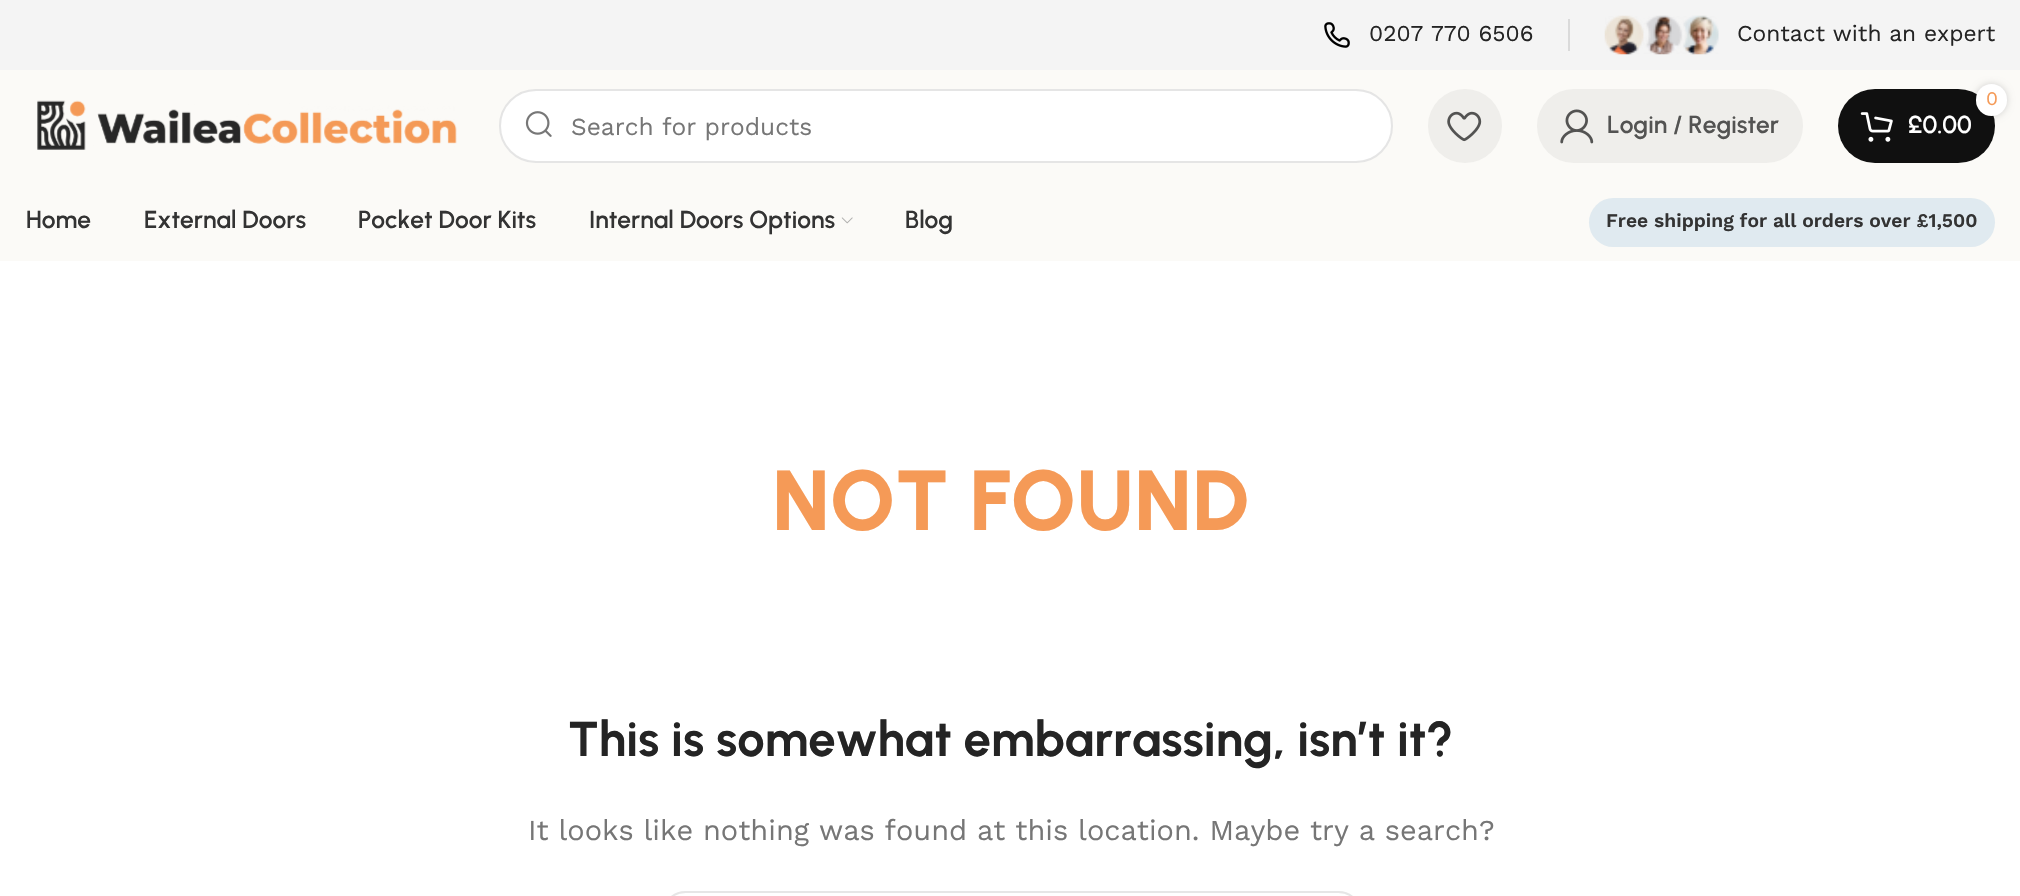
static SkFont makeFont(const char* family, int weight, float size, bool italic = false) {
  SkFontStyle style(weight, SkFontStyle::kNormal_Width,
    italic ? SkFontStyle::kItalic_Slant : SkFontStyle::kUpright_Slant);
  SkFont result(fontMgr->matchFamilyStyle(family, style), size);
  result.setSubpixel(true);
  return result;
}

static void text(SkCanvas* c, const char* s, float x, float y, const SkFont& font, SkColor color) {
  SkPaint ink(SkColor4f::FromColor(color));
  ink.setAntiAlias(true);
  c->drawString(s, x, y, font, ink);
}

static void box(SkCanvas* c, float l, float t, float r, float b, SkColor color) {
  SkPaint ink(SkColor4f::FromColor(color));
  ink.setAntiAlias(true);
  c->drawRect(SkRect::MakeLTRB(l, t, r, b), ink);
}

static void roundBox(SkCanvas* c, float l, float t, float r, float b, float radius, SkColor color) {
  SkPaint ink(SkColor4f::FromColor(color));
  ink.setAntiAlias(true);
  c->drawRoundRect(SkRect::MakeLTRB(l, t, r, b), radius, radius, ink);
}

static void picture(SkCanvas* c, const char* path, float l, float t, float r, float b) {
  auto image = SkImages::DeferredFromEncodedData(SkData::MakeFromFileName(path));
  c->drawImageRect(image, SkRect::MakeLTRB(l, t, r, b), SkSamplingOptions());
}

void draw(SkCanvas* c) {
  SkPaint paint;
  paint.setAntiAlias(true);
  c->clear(0xffffffff);
  box(c, 0, 0, 2020, 70, 0xfff4f4f4);
  picture(c, "img_01.png", 1324, 22, 1350, 48);
  SkFont face1 = makeFont("Work Sans", 400, 22.75f);
  text(c, "0207 770 6506", 1369, 41, face1, 0xff242424);
  box(c, 1568, 19, 1570, 51, 0xffdadada);
  picture(c, "img_02.png", 1604, 15, 1719, 55);
  text(c, "Contact with an expert", 1737, 41, face1, 0xff242424);
  box(c, 0, 70, 2020, 261, 0xfffbfaf7);
  picture(c, "img_03.png", 37, 100, 457, 150);
  roundBox(c, 499, 89, 1393, 163, 37, 0xffffffff);
  paint.setStyle(SkPaint::kStroke_Style);
  paint.setStrokeWidth(2);
  paint.setColor(0x1a000000);
  c->drawRoundRect(SkRect::MakeLTRB(500, 90, 1392, 162), 36, 36, paint);
  picture(c, "img_04.png", 525, 111, 552, 137);
  SkFont face2 = makeFont("Work Sans", 400, 24.5f);
  text(c, "Search for products", 571, 135, face2, 0xff767676);
  paint.setStyle(SkPaint::kFill_Style);
  paint.setColor(0xffefeeeb);
  c->drawCircle(1465, 126, 37, paint);
  picture(c, "img_05.png", 1447, 111, 1482, 142);
  roundBox(c, 1537, 89, 1803, 163, 37, 0xffefeeeb);
  picture(c, "img_06.png", 1560, 109, 1594, 144);
  SkFont face3 = makeFont("Urbanist", 600, 24.5f);
  text(c, "Login / Register", 1607, 133, face3, 0xff535352);
  roundBox(c, 1838, 89, 1995, 163, 37, 0xff101010);
  paint.setColor(0x2b000000);
  paint.setMaskFilter(SkMaskFilter::MakeBlur(kNormal_SkBlurStyle, 3.5f));
  c->drawRoundRect(SkRect::MakeLTRB(1976, 84, 2007, 116), 15.5f, 15.5f, paint);
  paint.setMaskFilter(nullptr);
  roundBox(c, 1976, 84, 2007, 116, 15.5f, 0xffffffff);
  SkFont face4 = makeFont("Work Sans", 400, 19.25f);
  text(c, "0", 1986, 105, face4, 0xfff59a57);
  picture(c, "img_07.png", 1860, 112, 1893, 142);
  text(c, "£0.00", 1908, 133, face3, 0xffffffff);
  text(c, "Home", 26, 228, face3, 0xff333333);
  text(c, "External Doors", 144, 228, face3, 0xff333333);
  text(c, "Pocket Door Kits", 358, 228, face3, 0xff333333);
  text(c, "Internal Doors Options", 589, 228, face3, 0xff333333);
  picture(c, "img_08.png", 841, 217, 853, 224);
  text(c, "Blog", 905, 228, face3, 0xff333333);
  roundBox(c, 1589, 198, 1995, 247, 24.5f, 0xffe0eaf0);
  SkFont face5 = makeFont("Work Sans", 600, 19.25f);
  text(c, "Free shipping for all orders over £1,500", 1606, 227, face5, 0xff333333);
  SkFont face6 = makeFont("Urbanist", 800, 85);
  text(c, "NOT FOUND", 772, 530, face6, 0xfff59a57);
  SkFont face7 = makeFont("Urbanist", 700, 49);
  text(c, "This is somewhat embarrassing, isn’t it?", 568, 756, face7, 0xff242424);
  SkFont face8 = makeFont("Work Sans", 400, 28.9f);
  text(c, "It looks like nothing was found at this location. Maybe try a search?", 528, 840, face8, 0xff767676);
  paint.setStyle(SkPaint::kStroke_Style);
  paint.setColor(0xffe6e6e6);
  c->drawRoundRect(SkRect::MakeLTRB(663, 892, 1361, 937), 39, 39, paint);
}
